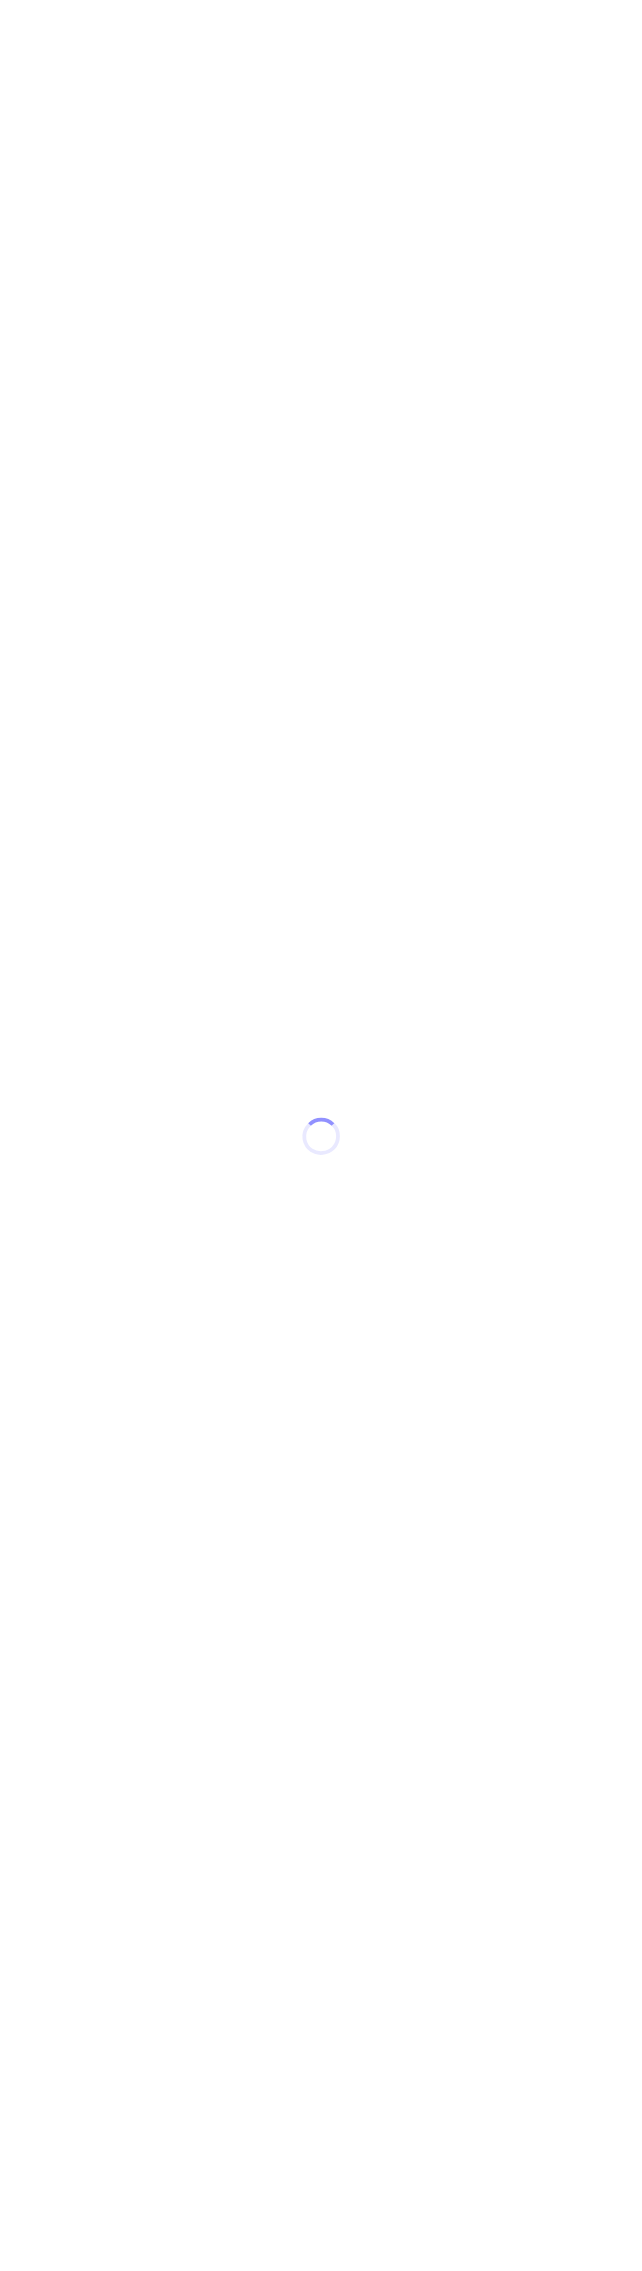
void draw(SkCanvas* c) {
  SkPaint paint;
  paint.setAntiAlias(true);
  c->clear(0xffffffff);
  paint.setStyle(SkPaint::kStroke_Style);
  paint.setStrokeWidth(3.8f);
  paint.setColor(0xff9191ff);
  c->drawPath(SkPathBuilder().moveTo(309.5f, 1124.5f).cubicTo(316, 1118, 326.5f, 1118, 333, 1124.5f).detach(), paint);
  paint.setColor(0x339191ff);
  c->drawPath(SkPathBuilder().moveTo(333, 1124.5f).cubicTo(336.5f, 1127.5f, 338, 1132, 338, 1136).cubicTo(338, 1156.5f, 308.5f, 1159.5f, 304.5f, 1139.5f).cubicTo(303.5f, 1134, 305.5f, 1128.5f, 309.5f, 1124.5f).detach(), paint);
}
